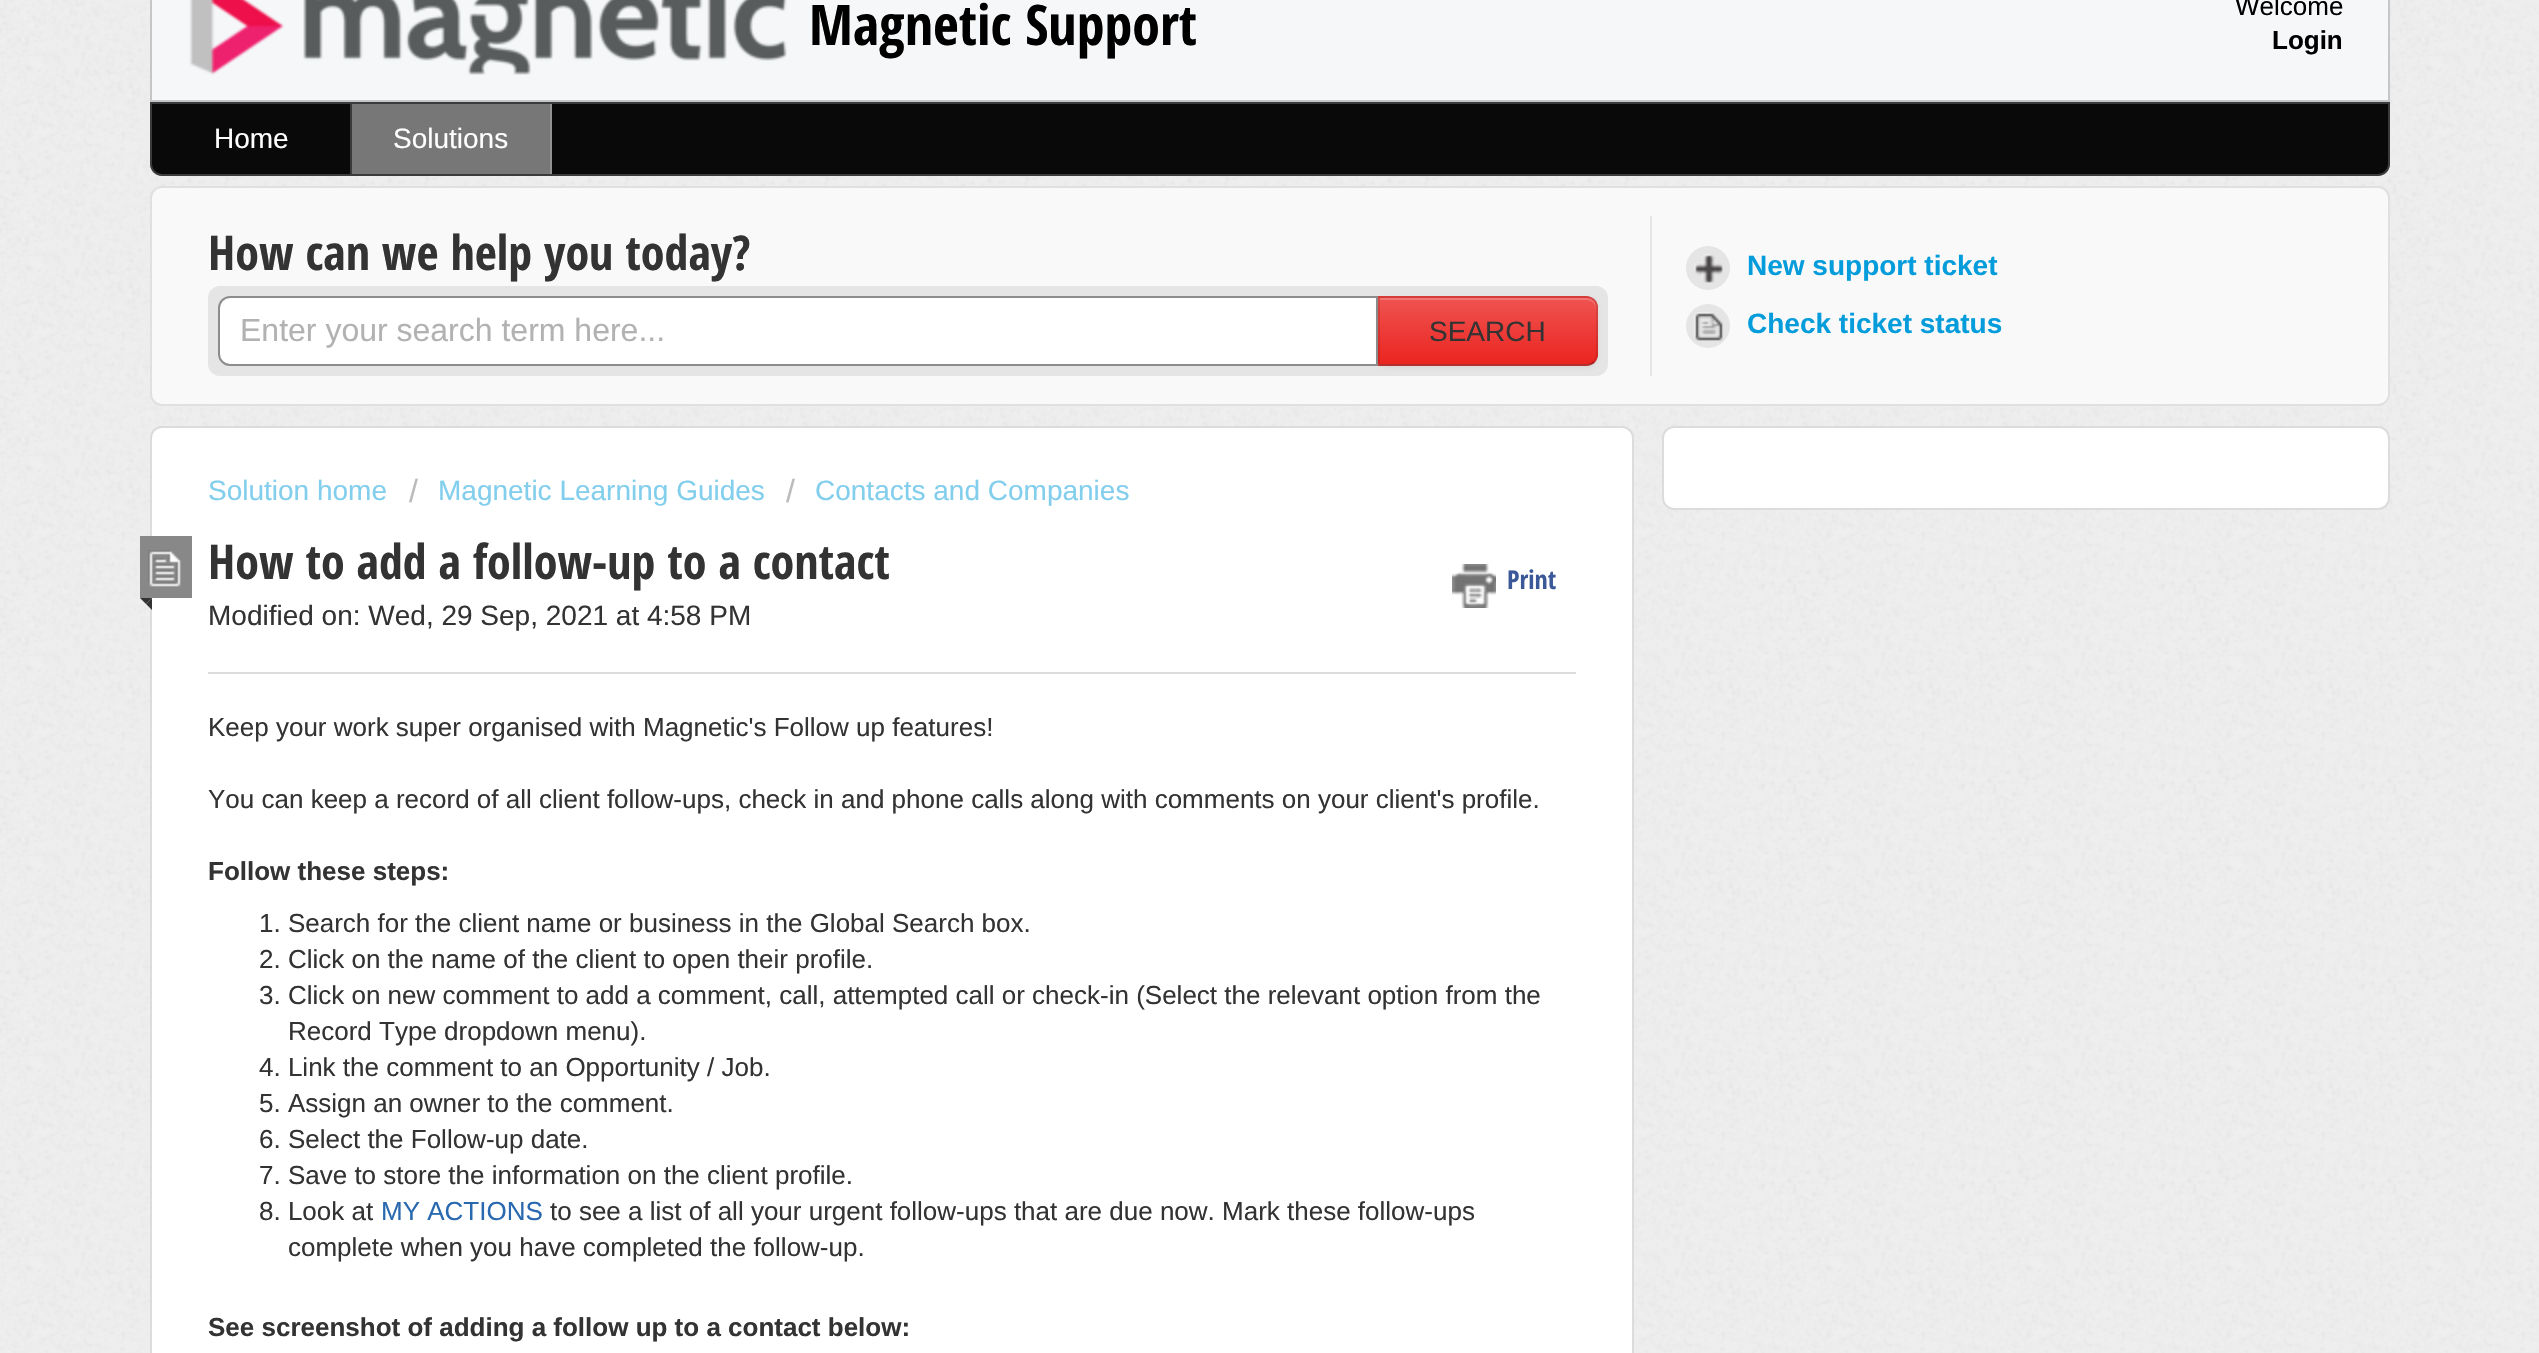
static SkFont makeFont(const char* family, int weight, float size, bool italic = false) {
  SkFontStyle style(weight, SkFontStyle::kNormal_Width,
    italic ? SkFontStyle::kItalic_Slant : SkFontStyle::kUpright_Slant);
  SkFont result(fontMgr->matchFamilyStyle(family, style), size);
  result.setSubpixel(true);
  return result;
}

static void text(SkCanvas* c, const char* s, float x, float y, const SkFont& font, SkColor color) {
  SkPaint ink(SkColor4f::FromColor(color));
  ink.setAntiAlias(true);
  c->drawString(s, x, y, font, ink);
}

static void box(SkCanvas* c, float l, float t, float r, float b, SkColor color) {
  SkPaint ink(SkColor4f::FromColor(color));
  ink.setAntiAlias(true);
  c->drawRect(SkRect::MakeLTRB(l, t, r, b), ink);
}

static void roundBox(SkCanvas* c, float l, float t, float r, float b, float radius, SkColor color) {
  SkPaint ink(SkColor4f::FromColor(color));
  ink.setAntiAlias(true);
  c->drawRoundRect(SkRect::MakeLTRB(l, t, r, b), radius, radius, ink);
}

static void picture(SkCanvas* c, const char* path, float l, float t, float r, float b) {
  auto image = SkImages::DeferredFromEncodedData(SkData::MakeFromFileName(path));
  c->drawImageRect(image, SkRect::MakeLTRB(l, t, r, b), SkSamplingOptions());
}

void draw(SkCanvas* c) {
  SkPaint paint;
  paint.setAntiAlias(true);
  c->clear(0xffefefef);
  picture(c, "img_01.png", 0, 0, 2539, 1353);
  paint.setColor(0xfff5f7f9);
  c->drawRect(SkRect::MakeLTRB(151, -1, 2389, 101), paint);
  paint.setStyle(SkPaint::kStroke_Style);
  paint.setStrokeWidth(2);
  paint.setColor(0xffc4c6c7);
  c->drawRect(SkRect::MakeLTRB(151, -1, 2389, 101), paint);
  picture(c, "img_02.png", 189, 0, 787, 75);
  SkFont face1 = makeFont("Open Sans Condensed", 700, 56);
  text(c, "Magnetic Support", 809, 45, face1, 0xff000000);
  SkFont face2 = makeFont("Liberation Sans", 400, 26);
  text(c, "Welcome", 2235, 15, face2, 0xff000000);
  SkFont face3 = makeFont("Liberation Sans", 700, 26);
  text(c, "Login", 2272, 49, face3, 0xff000000);
  paint.setStyle(SkPaint::kFill_Style);
  paint.setColor(0xff090909);
  c->drawPath(SkPathBuilder().moveTo(150, 102).lineTo(2390, 102).lineTo(2390, 164).cubicTo(2390, 170.5f, 2384.5f, 176, 2378, 176).lineTo(162, 176).cubicTo(155.5f, 176, 150, 170.5f, 150, 164).close().detach(), paint);
  paint.setStyle(SkPaint::kStroke_Style);
  paint.setColor(0x33ffffff);
  c->drawPath(SkPathBuilder().moveTo(151, 103).lineTo(2389, 103).lineTo(2389, 164).cubicTo(2389, 170, 2384, 175, 2378, 175).lineTo(162, 175).cubicTo(156, 175, 151, 170, 151, 164).close().detach(), paint);
  box(c, 350, 104, 352, 174, 0xff3a3a3a);
  SkFont face4 = makeFont("Liberation Sans", 400, 28);
  text(c, "Home", 214, 148, face4, 0xffffffff);
  box(c, 352, 104, 550, 174, 0xff777777);
  box(c, 550, 104, 552, 174, 0xff929292);
  text(c, "Solutions", 393, 148, face4, 0xffffffff);
  paint.setStyle(SkPaint::kFill_Style);
  paint.setColor(0xfff9f9f9);
  c->drawRoundRect(SkRect::MakeLTRB(151, 187, 2389, 405), 11, 11, paint);
  paint.setStyle(SkPaint::kStroke_Style);
  paint.setColor(0xffe0e0e0);
  c->drawRoundRect(SkRect::MakeLTRB(151, 187, 2389, 405), 11, 11, paint);
  box(c, 1650, 216, 1652, 376, 0xffe5e5e5);
  SkFont face5 = makeFont("Open Sans Condensed", 700, 48);
  text(c, "How can we help you today?", 208, 270, face5, 0xff333333);
  roundBox(c, 208, 286, 1608, 376, 12, 0xffe5e5e5);
  paint.setStyle(SkPaint::kFill_Style);
  paint.setColor(0xffffffff);
  c->drawPath(SkPathBuilder().moveTo(230, 297).lineTo(1377, 297).lineTo(1377, 365).lineTo(230, 365).cubicTo(224, 365, 219, 360, 219, 354).lineTo(219, 308).cubicTo(219, 302, 224, 297, 230, 297).close().detach(), paint);
  paint.setStyle(SkPaint::kStroke_Style);
  paint.setColor(0xff8c8c8c);
  c->drawPath(SkPathBuilder().moveTo(230, 297).lineTo(1377, 297).lineTo(1377, 365).lineTo(230, 365).cubicTo(224, 365, 219, 360, 219, 354).lineTo(219, 308).cubicTo(219, 302, 224, 297, 230, 297).close().detach(), paint);
  SkFont face6 = makeFont("Liberation Sans", 400, 32);
  text(c, "Enter your search term here...", 240, 341, face6, 0xffb2b2b2);
  paint.setStyle(SkPaint::kFill_Style);
  paint.setColor(0x0d000000);
  paint.setMaskFilter(SkMaskFilter::MakeBlur(kNormal_SkBlurStyle, 2));
  c->drawRoundRect(SkRect::MakeLTRB(1378, 298, 1598, 368), 12, 12, paint);
  paint.setMaskFilter(nullptr);
  paint.setColor(0xffed413d);
  c->drawPath(SkPathBuilder().moveTo(1378, 296).lineTo(1586, 296).cubicTo(1592.5f, 296, 1598, 301.5f, 1598, 308).lineTo(1598, 354).cubicTo(1598, 360.5f, 1592.5f, 366, 1586, 366).lineTo(1378, 366).close().detach(), paint);
  c->save();
  c->clipPath(SkPathBuilder().moveTo(1378, 296).lineTo(1586, 296).cubicTo(1592.5f, 296, 1598, 301.5f, 1598, 308).lineTo(1598, 354).cubicTo(1598, 360.5f, 1592.5f, 366, 1586, 366).lineTo(1378, 366).close().detach(), true);
  {
    const SkColor colors[] = {0xffef5350, 0xffeb2521};
    const float stops[] = {0, 1};
    const SkPoint ends[] = {{1488, 298}, {1488, 364}};
    paint.setShader(SkGradientShader::MakeLinear(ends, colors, stops, 2, SkTileMode::kClamp));
    paint.setAlpha(255);
  }
  c->drawRect(SkRect::MakeLTRB(1378, 298, 1598, 364), paint);
  c->restore();
  paint.setShader(nullptr);
  paint.setColor(0x33ffffff);
  c->drawPath(SkPathBuilder().moveTo(1380, 300).lineTo(1586, 300).cubicTo(1592, 300, 1596, 304, 1596, 310).lineTo(1596, 308).cubicTo(1596, 302, 1592, 298, 1586, 298).lineTo(1380, 298).close().detach(), paint);
  paint.setColor(0x1a000000);
  c->drawPath(SkPathBuilder().moveTo(1378, 296).lineTo(1380, 298).lineTo(1586, 298).cubicTo(1589, 298, 1592, 299, 1593, 301).lineTo(1595, 299).cubicTo(1592, 297, 1590, 296, 1586, 296).close().detach(), paint);
  c->drawPath(SkPathBuilder().moveTo(1598, 354).lineTo(1598, 308).cubicTo(1598, 304, 1597, 302, 1595, 299).lineTo(1593, 301).cubicTo(1595, 302, 1596, 305, 1596, 308).lineTo(1596, 354).cubicTo(1596, 357, 1595, 360, 1593, 361).lineTo(1595, 363).cubicTo(1597, 360, 1598, 358, 1598, 354).close().detach(), paint);
  paint.setColor(0x40000000);
  c->drawPath(SkPathBuilder().moveTo(1586, 366).cubicTo(1590, 366, 1592, 365, 1595, 363).lineTo(1593, 361).cubicTo(1592, 363, 1589, 364, 1586, 364).lineTo(1380, 364).lineTo(1378, 366).close().detach(), paint);
  paint.setColor(0x1a000000);
  c->drawPath(SkPathBuilder().moveTo(1378, 296).lineTo(1378, 366).lineTo(1380, 364).lineTo(1380, 298).close().detach(), paint);
  text(c, "SEARCH", 1429, 341, face4, 0xff333333);
  paint.setColor(0xffe5e5e5);
  c->drawCircle(1708, 268, 22, paint);
  picture(c, "img_03.png", 1694, 254, 1723, 283);
  SkFont face7 = makeFont("Liberation Sans", 700, 28);
  text(c, "New support ticket", 1747, 275, face7, 0xff049cdb);
  c->drawCircle(1708, 326, 22, paint);
  picture(c, "img_04.png", 1694, 312, 1723, 341);
  text(c, "Check ticket status", 1747, 333, face7, 0xff049cdb);
  paint.setColor(0xffffffff);
  c->drawRoundRect(SkRect::MakeLTRB(1663, 427, 2389, 509), 11, 11, paint);
  paint.setStyle(SkPaint::kStroke_Style);
  paint.setColor(0xffdcdcdc);
  c->drawRoundRect(SkRect::MakeLTRB(1663, 427, 2389, 509), 11, 11, paint);
  paint.setStyle(SkPaint::kFill_Style);
  paint.setColor(0xffffffff);
  c->drawRoundRect(SkRect::MakeLTRB(151, 427, 1633, 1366), 11, 11, paint);
  paint.setStyle(SkPaint::kStroke_Style);
  paint.setColor(0xffdcdcdc);
  c->drawRoundRect(SkRect::MakeLTRB(151, 427, 1633, 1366), 11, 11, paint);
  text(c, "Solution home", 208, 500, face4, 0xff82ceed);
  text(c, "/", 409, 502, face6, 0xffbbbbbb);
  text(c, "Magnetic Learning Guides", 438, 500, face4, 0xff82ceed);
  text(c, "/", 786, 502, face6, 0xffbbbbbb);
  text(c, "Contacts and Companies", 815, 500, face4, 0xff82ceed);
  box(c, 140, 536, 192, 598, 0xff888888);
  picture(c, "img_05.png", 148, 550, 181, 587);
  paint.setStyle(SkPaint::kFill_Style);
  paint.setColor(0xff333333);
  c->drawPath(SkPathBuilder().moveTo(140, 598).lineTo(152, 598).lineTo(146, 604).close().detach(), paint);
  c->drawPath(SkPathBuilder().moveTo(152, 598).lineTo(152, 610).lineTo(146, 604).close().detach(), paint);
  text(c, "How to add a follow-up to a contact", 208, 579, face5, 0xff333333);
  picture(c, "img_06.png", 1452, 564, 1496, 608);
  SkFont face8 = makeFont("Open Sans Condensed", 700, 26);
  text(c, "Print", 1507, 589, face8, 0xff3b5998);
  text(c, "Modified on: Wed, 29 Sep, 2021 at 4:58 PM", 208, 625, face4, 0xff333333);
  box(c, 208, 672, 1576, 674, 0xffdcdcdc);
  text(c, "Keep your work super organised with Magnetic's Follow up features!", 208, 736, face2, 0xff333333);
  text(c, "You can keep a record of all client follow-ups, check in and phone calls along with comments on your client's profile.", 208, 808, face2, 0xff333333);
  text(c, "Follow these steps:", 208, 880, face3, 0xff333333);
  text(c, "1. Search for the client name or business in the Global Search box.", 259, 932, face2, 0xff333333);
  text(c, "2. Click on the name of the client to open their profile.", 259, 968, face2, 0xff333333);
  text(c, "3. Click on new comment to add a comment, call, attempted call or check-in (Select the relevant option from the", 259, 1004, face2, 0xff333333);
  text(c, "Record Type dropdown menu).", 288, 1040, face2, 0xff333333);
  text(c, "4. Link the comment to an Opportunity / Job.", 259, 1076, face2, 0xff333333);
  text(c, "5. Assign an owner to the comment.", 259, 1112, face2, 0xff333333);
  text(c, "6. Select the Follow-up date.", 259, 1148, face2, 0xff333333);
  text(c, "7. Save to store the information on the client profile.", 259, 1184, face2, 0xff333333);
  text(c, "8. Look at", 259, 1220, face2, 0xff333333);
  text(c, "MY ACTIONS", 381, 1220, face2, 0xff2969b0);
  text(c, "to see a list of all your urgent follow-ups that are due now. Mark these follow-ups", 550, 1220, face2, 0xff333333);
  text(c, "complete when you have completed the follow-up.", 288, 1256, face2, 0xff333333);
  text(c, "See screenshot of adding a follow up to a contact below:", 208, 1336, face3, 0xff333333);
}
